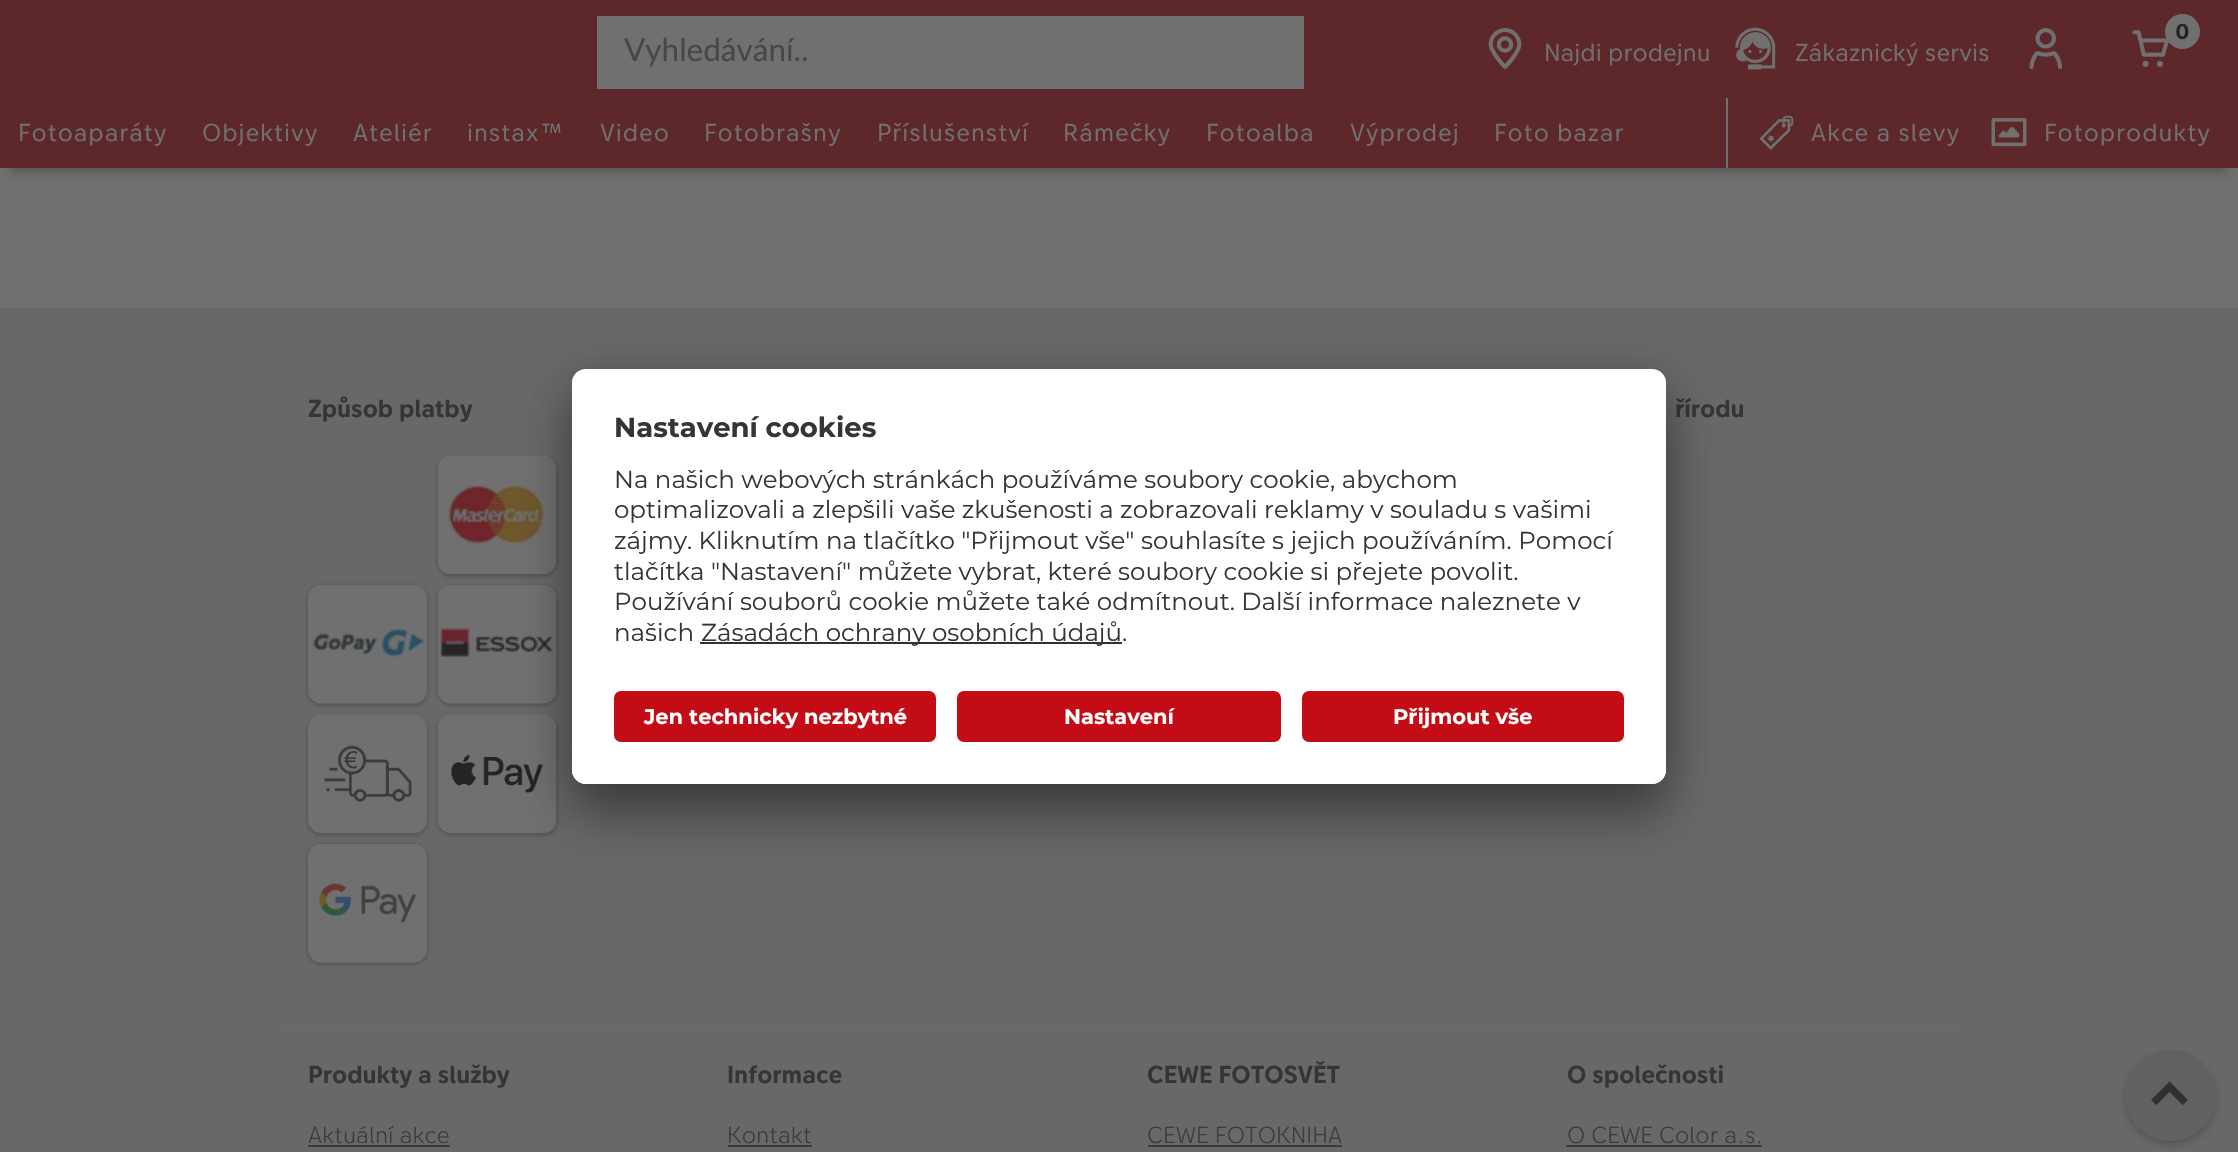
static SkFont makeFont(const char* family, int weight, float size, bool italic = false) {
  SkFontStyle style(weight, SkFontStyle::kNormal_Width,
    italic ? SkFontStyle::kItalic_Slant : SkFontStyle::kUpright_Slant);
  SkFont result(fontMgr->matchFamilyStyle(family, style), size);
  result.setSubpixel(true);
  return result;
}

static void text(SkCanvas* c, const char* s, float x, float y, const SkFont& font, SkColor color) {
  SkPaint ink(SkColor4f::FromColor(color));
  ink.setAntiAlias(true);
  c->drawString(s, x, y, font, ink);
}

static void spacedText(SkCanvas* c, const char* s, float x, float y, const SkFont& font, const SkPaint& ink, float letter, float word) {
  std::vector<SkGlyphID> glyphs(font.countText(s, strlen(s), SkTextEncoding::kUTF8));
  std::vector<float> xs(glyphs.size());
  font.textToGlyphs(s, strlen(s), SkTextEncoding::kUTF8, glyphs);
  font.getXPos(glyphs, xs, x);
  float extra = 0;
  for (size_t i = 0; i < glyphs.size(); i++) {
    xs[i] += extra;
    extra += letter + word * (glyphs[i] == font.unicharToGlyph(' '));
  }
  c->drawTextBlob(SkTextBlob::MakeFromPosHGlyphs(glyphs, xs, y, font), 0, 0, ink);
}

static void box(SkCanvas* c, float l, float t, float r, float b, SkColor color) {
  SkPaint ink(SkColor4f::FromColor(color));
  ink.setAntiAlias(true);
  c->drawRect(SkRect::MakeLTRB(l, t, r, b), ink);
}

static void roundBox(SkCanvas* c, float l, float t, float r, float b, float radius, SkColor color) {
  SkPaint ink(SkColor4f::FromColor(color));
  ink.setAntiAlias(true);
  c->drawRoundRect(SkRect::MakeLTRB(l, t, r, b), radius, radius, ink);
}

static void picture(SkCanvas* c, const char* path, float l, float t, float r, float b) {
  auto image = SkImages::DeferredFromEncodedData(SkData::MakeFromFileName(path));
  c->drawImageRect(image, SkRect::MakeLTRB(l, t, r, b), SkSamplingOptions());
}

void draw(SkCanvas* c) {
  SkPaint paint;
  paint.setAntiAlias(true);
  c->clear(0xff707070);
  paint.setColor(0xff545454);
  paint.setMaskFilter(SkMaskFilter::MakeBlur(kNormal_SkBlurStyle, 5));
  c->drawRect(SkRect::MakeLTRB(11, 25, 2228, 172), paint);
  paint.setMaskFilter(nullptr);
  box(c, 0, 0, 2238, 168, 0xff5e272a);
  box(c, 597, 16, 1304, 89, 0xff707070);
  SkFont face1 = makeFont("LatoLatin", 400, 31.5f);
  text(c, "Vyhledávání..", 624, 61, face1, 0xff474747);
  picture(c, "img_01.png", 1488, 28, 1522, 69);
  SkFont face2 = makeFont("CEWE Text", 400, 24.5f);
  text(c, "Najdi prodejnu", 1544, 61, face2, 0xff707070);
  picture(c, "img_02.png", 1735, 27, 1776, 70);
  text(c, "Zákaznický servis", 1795, 61, face2, 0xff707070);
  picture(c, "img_03.png", 2029, 28, 2062, 69);
  picture(c, "img_04.png", 2132, 30, 2169, 67);
  paint.setColor(0xff707070);
  c->drawCircle(2182.5f, 31.5f, 17.5f, paint);
  SkFont face3 = makeFont("CEWE Text", 700, 23);
  text(c, "0", 2175, 39, face3, 0xff242424);
  spacedText(c, "Fotoaparáty", 18, 141, face2, paint, 0.9f, 0);
  spacedText(c, "Objektivy", 202, 141, face2, paint, 0.9f, 0);
  spacedText(c, "Ateliér", 353, 141, face2, paint, 0.9f, 0);
  spacedText(c, "instax™", 467, 141, face2, paint, 0.9f, 0);
  spacedText(c, "Video", 600, 141, face2, paint, 0.9f, 0);
  spacedText(c, "Fotobrašny", 704, 141, face2, paint, 0.9f, 0);
  spacedText(c, "Příslušenství", 877, 141, face2, paint, 0.9f, 0);
  spacedText(c, "Rámečky", 1063, 141, face2, paint, 0.9f, 0);
  spacedText(c, "Fotoalba", 1206, 141, face2, paint, 0.9f, 0);
  spacedText(c, "Výprodej", 1350, 141, face2, paint, 0.9f, 0);
  spacedText(c, "Foto bazar", 1494, 141, face2, paint, 0.9f, 0);
  box(c, 1726, 98, 1728, 168, 0xff707070);
  picture(c, "img_05.png", 1759, 115, 1794, 150);
  spacedText(c, "Akce a slevy", 1811, 141, face2, paint, 0.9f, 0);
  picture(c, "img_06.png", 1991, 118, 2027, 147);
  spacedText(c, "Fotoprodukty", 2044, 141, face2, paint, 0.9f, 0);
  box(c, 0, 308, 2238, 1152, 0xff686868);
  SkFont face4 = makeFont("CEWE Text", 700, 24.5f);
  text(c, "Způsob platby", 308, 417, face4, 0xff353535);
  c->save();
  c->clipRect(SkRect::MakeLTRB(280, 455, 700, 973));
  paint.setColor(0x66242424);
  paint.setMaskFilter(SkMaskFilter::MakeBlur(kNormal_SkBlurStyle, 2.5f));
  c->drawRoundRect(SkRect::MakeLTRB(438, 457, 557, 576), 14, 14, paint);
  paint.setMaskFilter(nullptr);
  c->restore();
  picture(c, "img_07.png", 437, 455, 557, 575);
  paint.setMaskFilter(SkMaskFilter::MakeBlur(kNormal_SkBlurStyle, 2.5f));
  c->drawRoundRect(SkRect::MakeLTRB(308, 586, 427, 705), 14, 14, paint);
  paint.setMaskFilter(nullptr);
  picture(c, "img_08.png", 308, 585, 427, 704);
  paint.setMaskFilter(SkMaskFilter::MakeBlur(kNormal_SkBlurStyle, 2.5f));
  c->drawRoundRect(SkRect::MakeLTRB(438, 586, 557, 705), 14, 14, paint);
  paint.setMaskFilter(nullptr);
  picture(c, "img_09.png", 437, 585, 557, 704);
  paint.setMaskFilter(SkMaskFilter::MakeBlur(kNormal_SkBlurStyle, 2.5f));
  c->drawRoundRect(SkRect::MakeLTRB(308, 716, 427, 835), 14, 14, paint);
  paint.setMaskFilter(nullptr);
  picture(c, "img_10.png", 308, 714, 427, 834);
  paint.setMaskFilter(SkMaskFilter::MakeBlur(kNormal_SkBlurStyle, 2.5f));
  c->drawRoundRect(SkRect::MakeLTRB(438, 716, 557, 835), 14, 14, paint);
  paint.setMaskFilter(nullptr);
  picture(c, "img_11.png", 437, 714, 557, 834);
  paint.setMaskFilter(SkMaskFilter::MakeBlur(kNormal_SkBlurStyle, 2.5f));
  c->drawRoundRect(SkRect::MakeLTRB(308, 845, 427, 964), 14, 14, paint);
  paint.setMaskFilter(nullptr);
  picture(c, "img_12.png", 308, 844, 427, 963);
  text(c, "řírodu", 1675, 417, face4, 0xff353535);
  box(c, 280, 1029, 1958, 1031, 0xff6b6b6b);
  text(c, "Produkty a služby", 308, 1083, face4, 0xff353535);
  SkFont face5 = makeFont("CEWE Text", 300, 23.25f);
  text(c, "Aktuální akce", 308, 1143, face5, 0xff3b3b3b);
  box(c, 308, 1145, 450, 1147, 0xff3b3b3b);
  text(c, "Informace", 727, 1083, face4, 0xff353535);
  text(c, "Kontakt", 727, 1143, face5, 0xff3b3b3b);
  box(c, 728, 1145, 812, 1147, 0xff3b3b3b);
  text(c, "CEWE FOTOSVĚT", 1147, 1083, face4, 0xff353535);
  text(c, "CEWE FOTOKNIHA", 1147, 1143, face5, 0xff3b3b3b);
  box(c, 1148, 1145, 1342, 1147, 0xff3b3b3b);
  text(c, "O společnosti", 1567, 1083, face4, 0xff353535);
  text(c, "O CEWE Color a.s.", 1567, 1143, face5, 0xff3b3b3b);
  box(c, 1566, 1145, 1762, 1147, 0xff3b3b3b);
  paint.setColor(0x4d242424);
  paint.setMaskFilter(SkMaskFilter::MakeBlur(kNormal_SkBlurStyle, 3.5f));
  c->drawRoundRect(SkRect::MakeLTRB(2125, 1054, 2216, 1145), 45.5f, 45.5f, paint);
  paint.setMaskFilter(nullptr);
  paint.setColor(0xff616161);
  c->drawCircle(2170.5f, 1095.5f, 45.5f, paint);
  picture(c, "img_13.png", 2151, 1081, 2188, 1106);
  paint.setColor(0x4d000000);
  paint.setMaskFilter(SkMaskFilter::MakeBlur(kNormal_SkBlurStyle, 24.5f));
  c->drawRoundRect(SkRect::MakeLTRB(572, 404, 1666, 819), 14, 14, paint);
  paint.setMaskFilter(nullptr);
  paint.setColor(0x38000000);
  paint.setMaskFilter(SkMaskFilter::MakeBlur(kNormal_SkBlurStyle, 23));
  c->drawRoundRect(SkRect::MakeLTRB(572, 378, 1666, 793), 14, 14, paint);
  paint.setMaskFilter(nullptr);
  roundBox(c, 572, 369, 1666, 784, 14, 0xffffffff);
  c->save();
  c->clipPath(SkPathBuilder().moveTo(586, 369).lineTo(1652, 369).cubicTo(1659.5f, 369, 1666, 375.5f, 1666, 383).lineTo(1666, 770).cubicTo(1666, 777.5f, 1659.5f, 784, 1652, 784).lineTo(586, 784).cubicTo(578.5f, 784, 572, 777.5f, 572, 770).lineTo(572, 383).cubicTo(572, 375.5f, 578.5f, 369, 586, 369).close().detach(), true);
  c->clipPath(SkPathBuilder().moveTo(586, 369).lineTo(1652, 369).cubicTo(1659.5f, 369, 1666, 375.5f, 1666, 383).lineTo(1666, 677).lineTo(572, 677).lineTo(572, 383).cubicTo(572, 375.5f, 578.5f, 369, 586, 369).close().detach(), true);
  box(c, 572, 371, 1666, 677, 0xffffffff);
  c->restore();
  SkFont face6 = makeFont("Montserrat", 700, 27.5f);
  text(c, "Nastavení cookies", 614, 437, face6, 0xff353535);
  SkFont face7 = makeFont("Montserrat", 400, 24.5f);
  text(c, "Na našich webových stránkách používáme soubory cookie, abychom", 614, 488, face7, 0xff353535);
  text(c, "optimalizovali a zlepšili vaše zkušenosti a zobrazovali reklamy v souladu s vašimi", 614, 518, face7, 0xff353535);
  text(c, "zájmy. Kliknutím na tlačítko \"Přijmout vše\" souhlasíte s jejich používáním. Pomocí", 614, 549, face7, 0xff353535);
  text(c, "tlačítka \"Nastavení\" můžete vybrat, které soubory cookie si přejete povolit.", 614, 580, face7, 0xff353535);
  text(c, "Používání souborů cookie můžete také odmítnout. Další informace naleznete v", 614, 610, face7, 0xff353535);
  text(c, "našich", 614, 641, face7, 0xff353535);
  box(c, 700, 642, 1122, 644, 0xff303030);
  text(c, "Zásadách ochrany osobních údajů.", 701, 641, face7, 0xff353535);
  paint.setColor(0xffffffff);
  c->drawPath(SkPathBuilder().moveTo(572, 677).lineTo(1666, 677).lineTo(1666, 770).cubicTo(1666, 777.5f, 1659.5f, 784, 1652, 784).lineTo(586, 784).cubicTo(578.5f, 784, 572, 777.5f, 572, 770).close().detach(), paint);
  roundBox(c, 614, 691, 936, 742, 7, 0xffc30c15);
  SkFont face8 = makeFont("Montserrat", 700, 21);
  text(c, "Jen technicky nezbytné", 644, 724, face8, 0xffffffff);
  roundBox(c, 957, 691, 1281, 742, 7, 0xffc30c15);
  text(c, "Nastavení", 1064, 724, face8, 0xffffffff);
  roundBox(c, 1302, 691, 1624, 742, 7, 0xffc30c15);
  text(c, "Přijmout vše", 1393, 724, face8, 0xffffffff);
}
